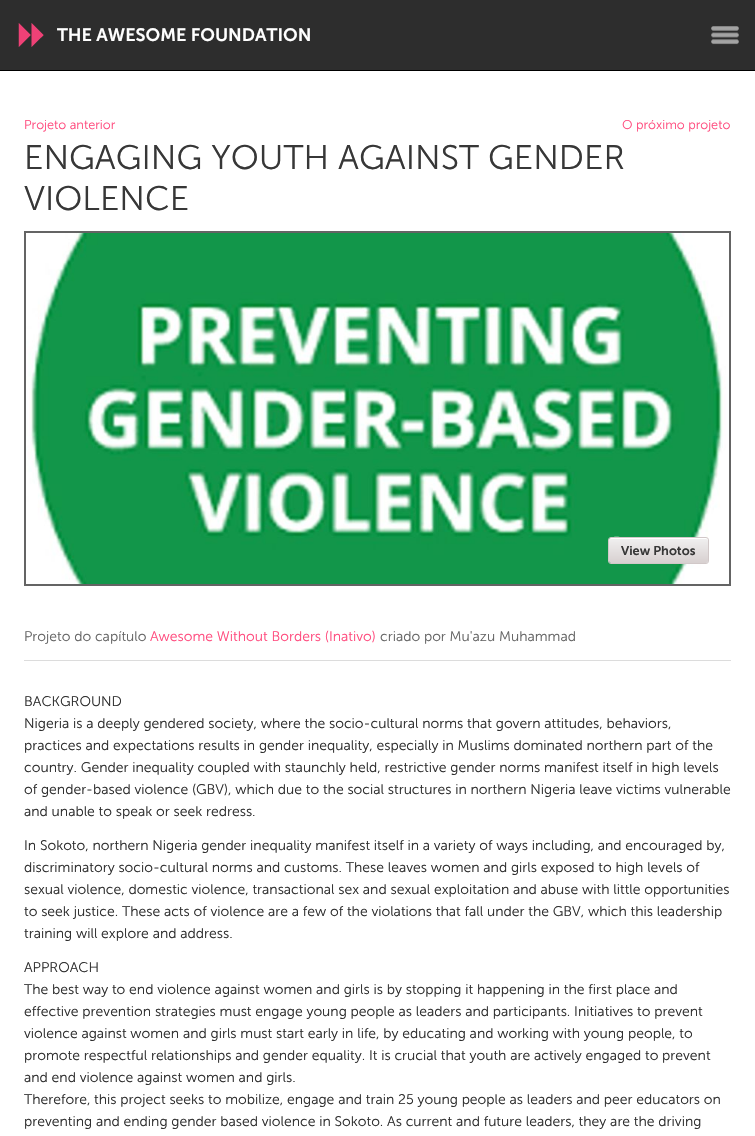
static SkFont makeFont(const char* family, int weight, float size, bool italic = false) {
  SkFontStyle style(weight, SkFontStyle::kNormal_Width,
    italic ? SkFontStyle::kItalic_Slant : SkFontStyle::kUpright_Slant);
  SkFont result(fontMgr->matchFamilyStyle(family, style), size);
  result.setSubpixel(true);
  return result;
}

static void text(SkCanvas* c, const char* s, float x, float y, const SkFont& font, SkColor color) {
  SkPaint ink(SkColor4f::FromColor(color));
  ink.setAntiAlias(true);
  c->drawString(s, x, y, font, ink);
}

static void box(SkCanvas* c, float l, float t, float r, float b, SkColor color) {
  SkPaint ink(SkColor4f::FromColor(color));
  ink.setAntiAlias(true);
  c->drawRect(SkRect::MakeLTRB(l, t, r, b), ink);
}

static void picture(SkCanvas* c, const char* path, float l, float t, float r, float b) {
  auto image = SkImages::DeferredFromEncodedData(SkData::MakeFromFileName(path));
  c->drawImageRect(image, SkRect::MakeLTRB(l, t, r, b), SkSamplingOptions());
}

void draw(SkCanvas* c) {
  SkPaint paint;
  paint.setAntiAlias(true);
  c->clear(0xffffffff);
  box(c, 0, 0, 755, 70, 0xff2d2d2d);
  box(c, 0, 70, 755, 71, 0xff000000);
  picture(c, "img_01.png", 18, 23, 44, 47);
  SkFont face1 = makeFont("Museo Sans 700", 600, 18);
  text(c, "THE AWESOME FOUNDATION", 57, 41, face1, 0xffffffff);
  picture(c, "img_02.png", 711, 26, 739, 45);
  SkFont face2 = makeFont("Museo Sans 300", 300, 12.75f);
  text(c, "Projeto anterior", 24, 129, face2, 0xffff4b7e);
  text(c, "O próximo projeto", 622, 129, face2, 0xffff4b7e);
  SkFont face3 = makeFont("Museo Sans 300", 300, 34);
  text(c, "ENGAGING YOUTH AGAINST GENDER", 24, 169, face3, 0xff373737);
  text(c, "VIOLENCE", 24, 210, face3, 0xff373737);
  box(c, 24, 231, 731, 586, 0xff646464);
  picture(c, "img_03.png", 26, 233, 729, 584);
  {
    const SkColor colors[] = {0xfff0f0f0, 0xffd8d0d0};
    const float stops[] = {0, 1};
    const SkPoint ends[] = {{659, 538}, {659, 563}};
    paint.setShader(SkGradientShader::MakeLinear(ends, colors, stops, 2, SkTileMode::kClamp));
    paint.setAlpha(255);
  }
  c->drawRoundRect(SkRect::MakeLTRB(609, 538, 708, 563), 2, 2, paint);
  paint.setShader(nullptr);
  paint.setColor(0xffffffff);
  c->drawPath(SkPathBuilder().moveTo(611, 539).lineTo(706, 539).cubicTo(707, 539, 708, 540, 708, 541).cubicTo(708, 540, 708, 538, 706, 538).lineTo(627, 538).cubicTo(625, 538, 609, 534, 609, 541).cubicTo(609, 540, 610, 539, 611, 539).close().detach(), paint);
  paint.setStyle(SkPaint::kStroke_Style);
  paint.setStrokeWidth(1);
  paint.setColor(0xffd1c8c8);
  c->drawRoundRect(SkRect::MakeLTRB(608.5f, 537.5f, 708.5f, 563.5f), 2.5f, 2.5f, paint);
  SkFont face4 = makeFont("Museo Sans 700", 600, 12.75f);
  text(c, "View Photos", 621, 555, face4, 0xff373737);
  box(c, 24, 660, 731, 661, 0xffdcdcdc);
  SkFont face5 = makeFont("Museo Sans 300", 300, 14);
  text(c, "Projeto do capítulo", 24, 641, face5, 0xff646464);
  text(c, "Awesome Without Borders (Inativo)", 150, 641, face5, 0xffff4b7e);
  text(c, "criado por Mu'azu Muhammad", 380, 641, face5, 0xff646464);
  text(c, "BACKGROUND", 24, 706, face5, 0xff2e2e2e);
  text(c, "Nigeria is a deeply gendered society, where the socio-cultural norms that govern attitudes, behaviors,", 24, 728, face5, 0xff2e2e2e);
  text(c, "practices and expectations results in gender inequality, especially in Muslims dominated northern part of the", 24, 750, face5, 0xff2e2e2e);
  text(c, "country. Gender inequality coupled with staunchly held, restrictive gender norms manifest itself in high levels", 24, 772, face5, 0xff2e2e2e);
  text(c, "of gender-based violence (GBV), which due to the social structures in northern Nigeria leave victims vulnerable", 24, 794, face5, 0xff2e2e2e);
  text(c, "and unable to speak or seek redress.", 24, 816, face5, 0xff2e2e2e);
  text(c, "In Sokoto, northern Nigeria gender inequality manifest itself in a variety of ways including, and encouraged by,", 24, 850, face5, 0xff2e2e2e);
  text(c, "discriminatory socio-cultural norms and customs. These leaves women and girls exposed to high levels of", 24, 872, face5, 0xff2e2e2e);
  text(c, "sexual violence, domestic violence, transactional sex and sexual exploitation and abuse with little opportunities", 24, 894, face5, 0xff2e2e2e);
  text(c, "to seek justice. These acts of violence are a few of the violations that fall under the GBV, which this leadership", 24, 916, face5, 0xff2e2e2e);
  text(c, "training will explore and address.", 24, 938, face5, 0xff2e2e2e);
  text(c, "APPROACH", 24, 972, face5, 0xff2e2e2e);
  text(c, "The best way to end violence against women and girls is by stopping it happening in the first place and", 24, 994, face5, 0xff2e2e2e);
  text(c, "effective prevention strategies must engage young people as leaders and participants. Initiatives to prevent", 24, 1016, face5, 0xff2e2e2e);
  text(c, "violence against women and girls must start early in life, by educating and working with young people, to", 24, 1038, face5, 0xff2e2e2e);
  text(c, "promote respectful relationships and gender equality. It is crucial that youth are actively engaged to prevent", 24, 1060, face5, 0xff2e2e2e);
  text(c, "and end violence against women and girls.", 24, 1082, face5, 0xff2e2e2e);
  text(c, "Therefore, this project seeks to mobilize, engage and train 25 young people as leaders and peer educators on", 24, 1104, face5, 0xff2e2e2e);
  text(c, "preventing and ending gender based violence in Sokoto. As current and future leaders, they are the driving", 24, 1126, face5, 0xff2e2e2e);
}
